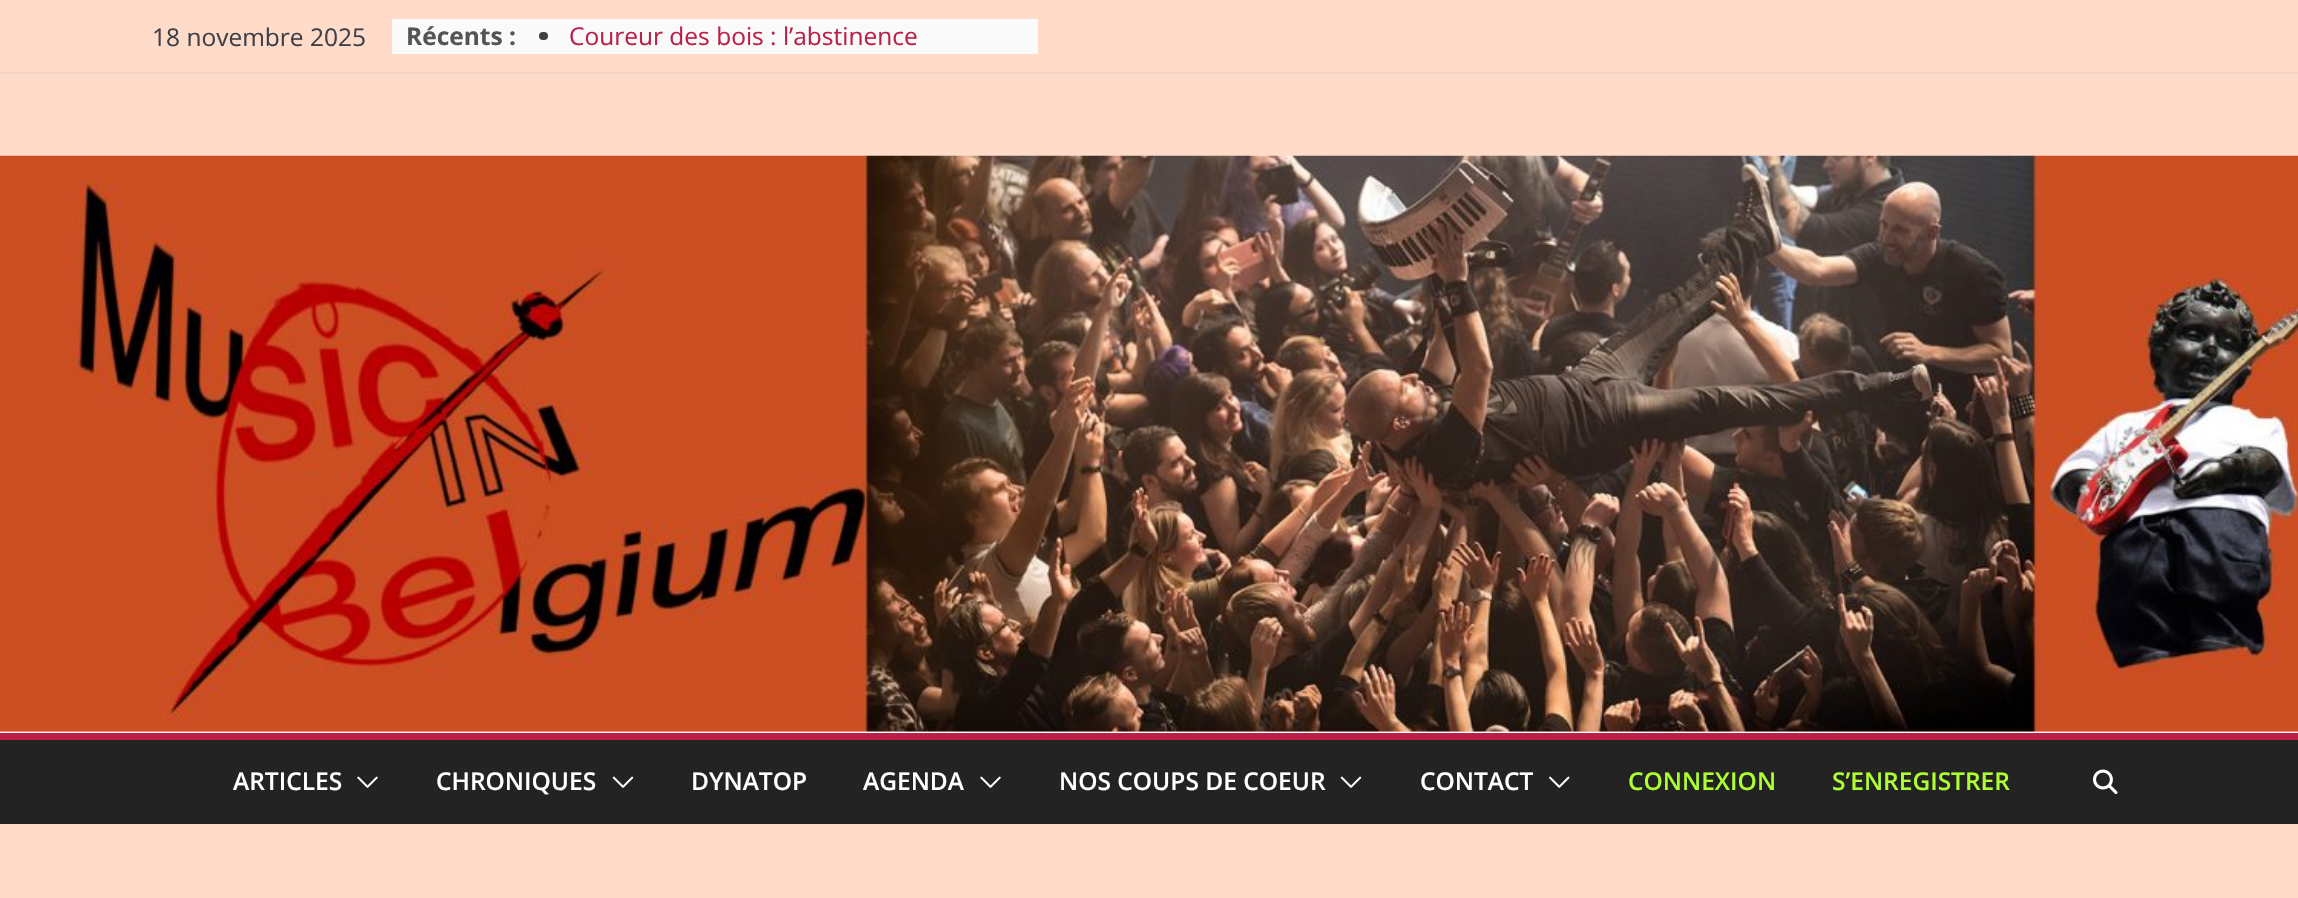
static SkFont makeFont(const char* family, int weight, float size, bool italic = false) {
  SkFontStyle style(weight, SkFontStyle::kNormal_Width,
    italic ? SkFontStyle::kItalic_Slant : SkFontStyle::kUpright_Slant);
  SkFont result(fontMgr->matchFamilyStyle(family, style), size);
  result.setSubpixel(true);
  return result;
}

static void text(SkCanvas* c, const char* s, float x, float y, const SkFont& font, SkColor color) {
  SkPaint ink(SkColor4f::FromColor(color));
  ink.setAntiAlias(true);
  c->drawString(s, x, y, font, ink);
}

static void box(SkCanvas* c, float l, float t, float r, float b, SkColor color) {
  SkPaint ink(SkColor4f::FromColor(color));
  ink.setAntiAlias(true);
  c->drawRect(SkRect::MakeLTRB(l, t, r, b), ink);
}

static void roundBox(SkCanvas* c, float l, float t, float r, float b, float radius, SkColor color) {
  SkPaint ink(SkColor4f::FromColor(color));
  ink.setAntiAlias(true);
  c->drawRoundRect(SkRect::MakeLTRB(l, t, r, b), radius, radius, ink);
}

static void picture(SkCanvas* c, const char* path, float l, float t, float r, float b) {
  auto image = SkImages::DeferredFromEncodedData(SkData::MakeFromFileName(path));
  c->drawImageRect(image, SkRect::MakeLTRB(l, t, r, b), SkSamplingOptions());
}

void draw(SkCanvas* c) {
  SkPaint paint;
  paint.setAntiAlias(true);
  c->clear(0xffffdcca);
  paint.setColor(0x1a000000);
  paint.setMaskFilter(SkMaskFilter::MakeBlur(kNormal_SkBlurStyle, 2));
  c->drawRect(SkRect::MakeLTRB(0, 0, 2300, 72), paint);
  paint.setMaskFilter(nullptr);
  box(c, 0, 0, 2298, 72, 0xffffdcca);
  SkFont face1 = makeFont("Open Sans", 400, 24.5f);
  text(c, "18 novembre 2025", 152, 46, face1, 0xff3f3f46);
  box(c, 392, 19, 1038, 54, 0xfffafafa);
  SkFont face2 = makeFont("Open Sans", 700, 24.5f);
  text(c, "Récents :", 406, 45, face2, 0xff555555);
  roundBox(c, 539, 32, 548, 40, 4, 0xff3f3f46);
  text(c, "Coureur des bois : l’abstinence", 569, 45, face1, 0xffba2047);
  picture(c, "img_01.png", 0, 155, 2298, 732);
  box(c, 0, 732, 2298, 733, 0xffffffff);
  box(c, 0, 740, 2298, 824, 0xff232323);
  box(c, 0, 733, 2298, 740, 0xffba2047);
  SkFont face3 = makeFont("Open Sans", 600, 24.5f);
  text(c, "ARTICLES", 233, 790, face3, 0xffffffff);
  picture(c, "img_02.png", 357, 776, 378, 788);
  text(c, "CHRONIQUES", 436, 790, face3, 0xffffffff);
  picture(c, "img_03.png", 612, 776, 634, 788);
  text(c, "DYNATOP", 691, 790, face3, 0xffffffff);
  text(c, "AGENDA", 863, 790, face3, 0xffffffff);
  picture(c, "img_02.png", 980, 776, 1001, 788);
  text(c, "NOS COUPS DE COEUR", 1059, 790, face3, 0xffffffff);
  picture(c, "img_03.png", 1340, 776, 1362, 788);
  text(c, "CONTACT", 1420, 790, face3, 0xffffffff);
  picture(c, "img_04.png", 1549, 776, 1570, 788);
  text(c, "CONNEXION", 1628, 790, face3, 0xffadff2f);
  text(c, "S’ENREGISTRER", 1832, 790, face3, 0xffadff2f);
  picture(c, "img_05.png", 2093, 769, 2118, 794);
}
